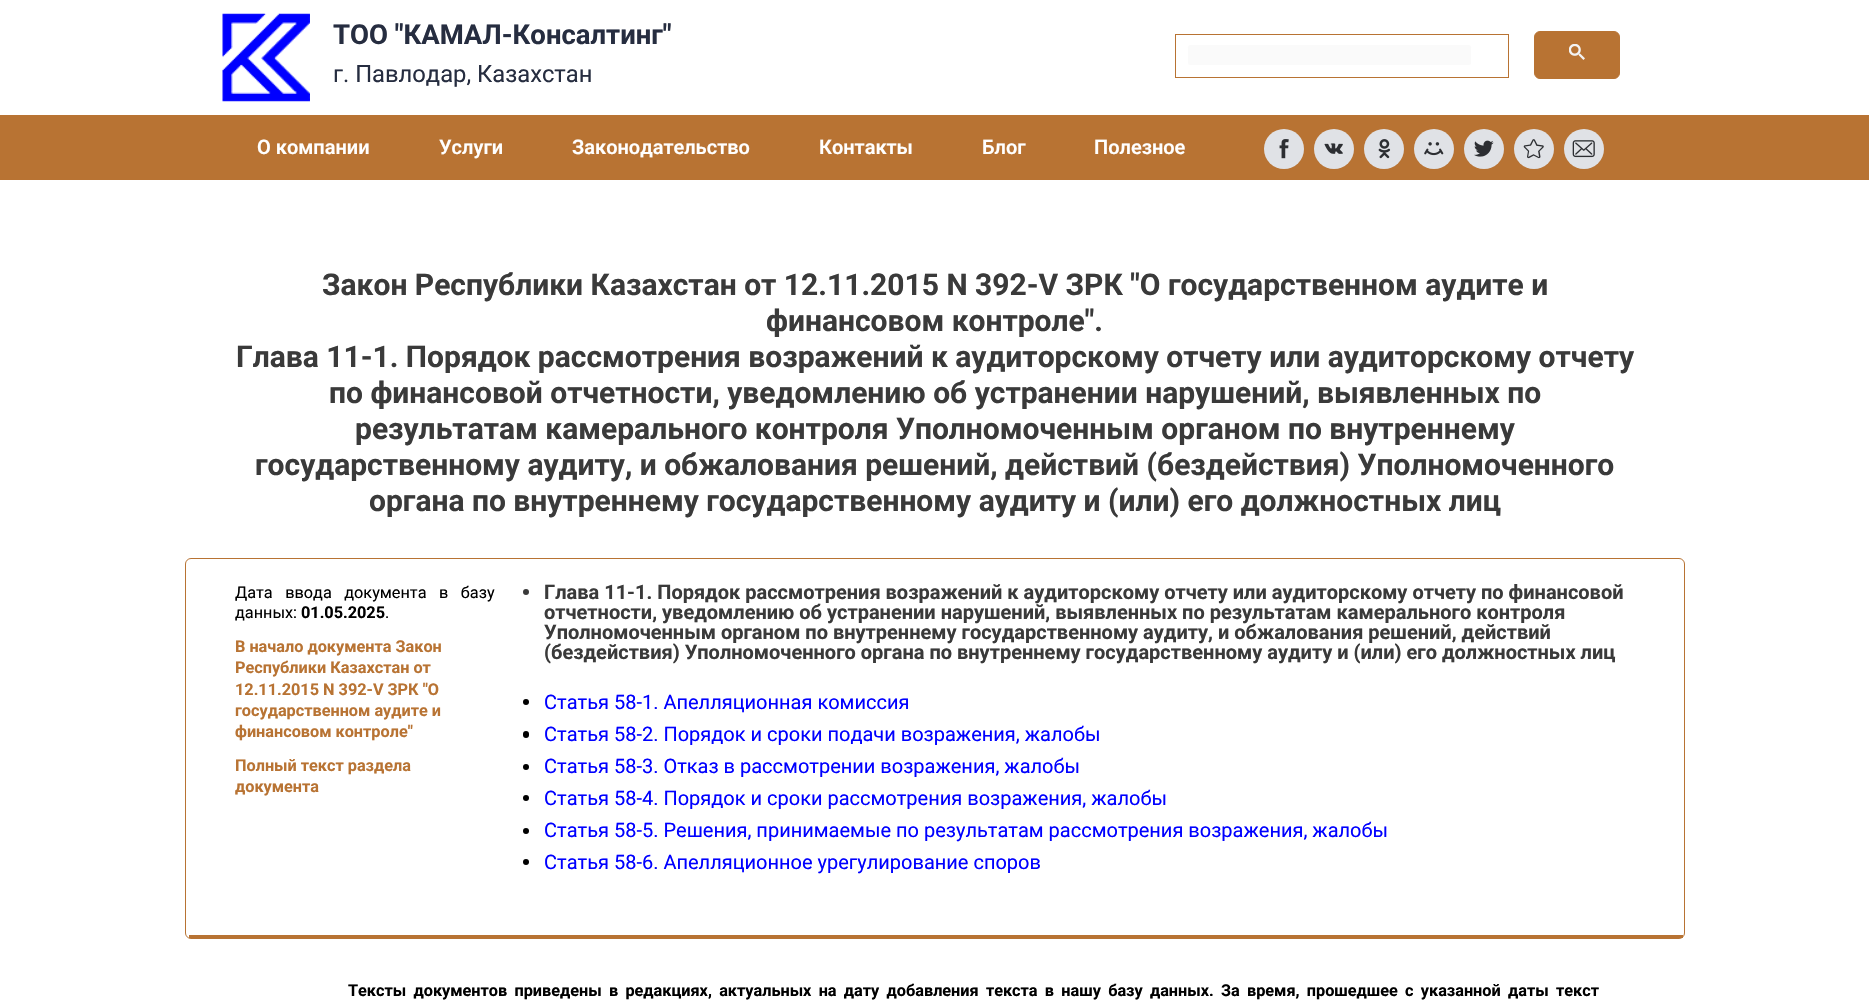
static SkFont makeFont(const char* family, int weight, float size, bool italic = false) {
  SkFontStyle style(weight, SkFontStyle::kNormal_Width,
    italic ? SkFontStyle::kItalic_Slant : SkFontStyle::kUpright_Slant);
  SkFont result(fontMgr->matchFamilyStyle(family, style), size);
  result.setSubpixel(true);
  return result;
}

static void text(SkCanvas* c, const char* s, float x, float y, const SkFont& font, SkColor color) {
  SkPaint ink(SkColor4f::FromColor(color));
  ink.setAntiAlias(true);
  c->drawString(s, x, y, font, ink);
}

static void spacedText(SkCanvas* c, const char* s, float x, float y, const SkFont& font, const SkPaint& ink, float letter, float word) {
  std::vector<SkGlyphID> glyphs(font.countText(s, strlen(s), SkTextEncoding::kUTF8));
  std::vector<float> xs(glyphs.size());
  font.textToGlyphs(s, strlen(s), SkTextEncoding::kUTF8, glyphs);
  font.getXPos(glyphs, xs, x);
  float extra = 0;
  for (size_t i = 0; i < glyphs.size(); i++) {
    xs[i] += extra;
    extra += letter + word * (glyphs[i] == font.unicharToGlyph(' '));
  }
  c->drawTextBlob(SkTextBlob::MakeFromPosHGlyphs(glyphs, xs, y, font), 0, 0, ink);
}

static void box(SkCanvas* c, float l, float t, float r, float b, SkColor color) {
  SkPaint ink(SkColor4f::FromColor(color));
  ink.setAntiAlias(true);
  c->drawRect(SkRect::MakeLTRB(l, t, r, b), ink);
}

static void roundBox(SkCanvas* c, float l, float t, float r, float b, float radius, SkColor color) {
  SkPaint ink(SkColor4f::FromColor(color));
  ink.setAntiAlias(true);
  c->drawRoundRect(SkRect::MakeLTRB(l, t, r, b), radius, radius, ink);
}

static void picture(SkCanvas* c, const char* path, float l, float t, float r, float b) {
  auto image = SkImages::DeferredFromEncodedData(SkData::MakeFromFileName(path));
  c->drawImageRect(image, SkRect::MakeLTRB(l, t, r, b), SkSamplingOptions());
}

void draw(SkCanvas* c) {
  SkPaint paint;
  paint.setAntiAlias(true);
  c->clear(0xffffffff);
  picture(c, "img_01.png", 222, 13, 310, 102);
  SkFont face1 = makeFont("Roboto", 700, 27.5f);
  text(c, "ТОО \"КАМАЛ-Консалтинг\"", 333, 44, face1, 0xff262d40);
  SkFont face2 = makeFont("Roboto", 400, 23.75f);
  text(c, "г. Павлодар, Казахстан", 333, 82, face2, 0xff262d40);
  paint.setStyle(SkPaint::kStroke_Style);
  paint.setStrokeWidth(1);
  paint.setColor(0xffb87333);
  c->drawRect(SkRect::MakeLTRB(1175.5f, 34.5f, 1508.5f, 77.5f), paint);
  roundBox(c, 1188, 45, 1471, 65, 2.5f, 0xfffafafa);
  paint.setStyle(SkPaint::kFill_Style);
  c->drawRoundRect(SkRect::MakeLTRB(1534.5f, 31.5f, 1619.5f, 78.5f), 5.5f, 5.5f, paint);
  paint.setStyle(SkPaint::kStroke_Style);
  c->drawRoundRect(SkRect::MakeLTRB(1534.5f, 31.5f, 1619.5f, 78.5f), 5.5f, 5.5f, paint);
  picture(c, "img_02.png", 1569, 44, 1585, 60);
  box(c, 0, 115, 1869, 180, 0xffb87333);
  SkFont face3 = makeFont("Roboto", 600, 20);
  text(c, "О компании", 257, 154, face3, 0xffffffff);
  text(c, "Услуги", 439, 154, face3, 0xffffffff);
  text(c, "Законодательство", 572, 154, face3, 0xffffffff);
  text(c, "Контакты", 819, 154, face3, 0xffffffff);
  text(c, "Блог", 982, 154, face3, 0xffffffff);
  text(c, "Полезное", 1094, 154, face3, 0xffffffff);
  paint.setStyle(SkPaint::kFill_Style);
  paint.setColor(0xffe0e2e6);
  c->drawCircle(1284, 149, 20, paint);
  picture(c, "img_03.png", 1279, 139, 1289, 159);
  c->drawCircle(1334, 149, 20, paint);
  picture(c, "img_04.png", 1324, 143, 1343, 154);
  c->drawCircle(1384, 149, 20, paint);
  picture(c, "img_05.png", 1378, 139, 1391, 159);
  c->drawCircle(1434, 149, 20, paint);
  picture(c, "img_06.png", 1424, 142, 1444, 156);
  c->drawCircle(1484, 149, 20, paint);
  picture(c, "img_07.png", 1474, 140, 1494, 157);
  c->drawCircle(1534, 149, 20, paint);
  picture(c, "img_08.png", 1523, 139, 1544, 159);
  c->drawCircle(1584, 149, 20, paint);
  picture(c, "img_09.png", 1572, 140, 1595, 158);
  SkFont face4 = makeFont("Roboto", 700, 30);
  text(c, "Закон Республики Казахстан от 12.11.2015 N 392-V ЗРК \"О государственном аудите и", 322, 295, face4, 0xff3a3a3a);
  text(c, "финансовом контроле\".", 766, 331, face4, 0xff3a3a3a);
  text(c, "Глава 11-1. Порядок рассмотрения возражений к аудиторскому отчету или аудиторскому отчету", 236, 367, face4, 0xff3a3a3a);
  text(c, "по финансовой отчетности, уведомлению об устранении нарушений, выявленных по", 329, 403, face4, 0xff3a3a3a);
  text(c, "результатам камерального контроля Уполномоченным органом по внутреннему", 355, 439, face4, 0xff3a3a3a);
  text(c, "государственному аудиту, и обжалования решений, действий (бездействия) Уполномоченного", 255, 475, face4, 0xff3a3a3a);
  text(c, "органа по внутреннему государственному аудиту и (или) его должностных лиц", 369, 511, face4, 0xff3a3a3a);
  paint.setStyle(SkPaint::kStroke_Style);
  paint.setColor(0xffb87333);
  c->drawRoundRect(SkRect::MakeLTRB(185.5f, 558.5f, 1684.5f, 938.5f), 5.5f, 5.5f, paint);
  box(c, 189, 935, 1683, 938, 0xffb87333);
  SkFont face5 = makeFont("Roboto", 400, 16.25f);
  paint.setStyle(SkPaint::kFill_Style);
  paint.setColor(0xff000000);
  spacedText(c, "Дата ввода документа в базу", 235, 598, face5, paint, 0, 8.5f);
  text(c, "данных:", 235, 618, face5, 0xff000000);
  SkFont face6 = makeFont("Roboto", 700, 16.25f);
  text(c, "01.05.2025", 301, 618, face6, 0xff000000);
  text(c, ".", 385, 618, face5, 0xff000000);
  text(c, "В начало документа Закон", 235, 652, face6, 0xffb87333);
  text(c, "Республики Казахстан от", 235, 673, face6, 0xffb87333);
  text(c, "12.11.2015 N 392-V ЗРК \"О", 235, 695, face6, 0xffb87333);
  text(c, "государственном аудите и", 235, 716, face6, 0xffb87333);
  text(c, "финансовом контроле\"", 235, 737, face6, 0xffb87333);
  text(c, "Полный текст раздела", 235, 771, face6, 0xffb87333);
  text(c, "документа", 235, 792, face6, 0xffb87333);
  paint.setColor(0xff3a3a3a);
  c->drawCircle(526, 592, 3, paint);
  SkFont face7 = makeFont("Roboto", 700, 20);
  text(c, "Глава 11-1. Порядок рассмотрения возражений к аудиторскому отчету или аудиторскому отчету по финансовой", 544, 599, face7, 0xff3a3a3a);
  text(c, "отчетности, уведомлению об устранении нарушений, выявленных по результатам камерального контроля", 544, 619, face7, 0xff3a3a3a);
  text(c, "Уполномоченным органом по внутреннему государственному аудиту, и обжалования решений, действий", 544, 639, face7, 0xff3a3a3a);
  text(c, "(бездействия) Уполномоченного органа по внутреннему государственному аудиту и (или) его должностных лиц", 544, 659, face7, 0xff3a3a3a);
  paint.setColor(0xff000000);
  c->drawCircle(526, 702, 3, paint);
  SkFont face8 = makeFont("Roboto", 400, 20);
  text(c, "Статья 58-1. Апелляционная комиссия", 544, 709, face8, 0xff0000ff);
  roundBox(c, 523, 731, 529, 738, 3, 0xff000000);
  text(c, "Статья 58-2. Порядок и сроки подачи возражения, жалобы", 544, 741, face8, 0xff0000ff);
  c->drawCircle(526, 767, 3, paint);
  text(c, "Статья 58-3. Отказ в рассмотрении возражения, жалобы", 544, 773, face8, 0xff0000ff);
  c->drawCircle(526, 798, 3, paint);
  text(c, "Статья 58-4. Порядок и сроки рассмотрения возражения, жалобы", 544, 805, face8, 0xff0000ff);
  c->drawCircle(526, 831, 3, paint);
  text(c, "Статья 58-5. Решения, принимаемые по результатам рассмотрения возражения, жалобы", 544, 837, face8, 0xff0000ff);
  c->drawCircle(526, 862, 3, paint);
  text(c, "Статья 58-6. Апелляционное урегулирование споров", 544, 869, face8, 0xff0000ff);
  spacedText(c, "Тексты документов приведены в редакциях, актуальных на дату добавления текста в нашу базу данных. За время, прошедшее с указанной даты текст", 348, 996, face6, paint, 0, 3.25f);
}
